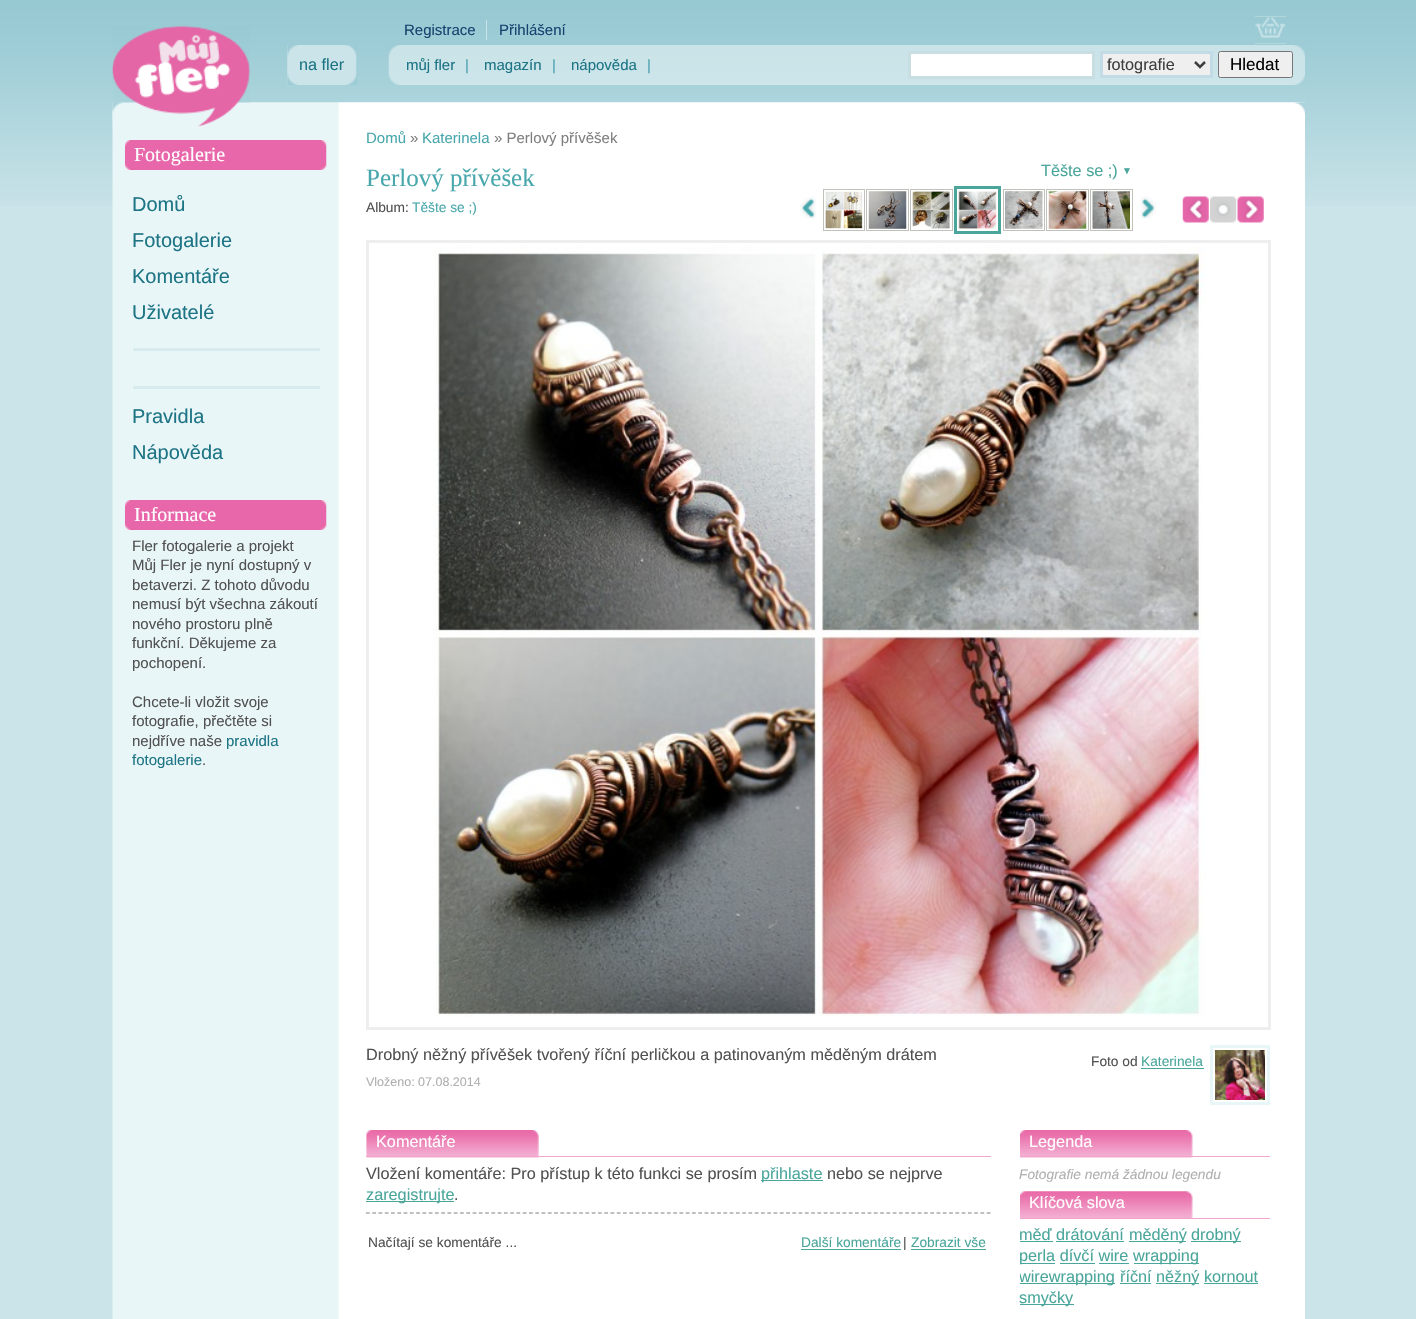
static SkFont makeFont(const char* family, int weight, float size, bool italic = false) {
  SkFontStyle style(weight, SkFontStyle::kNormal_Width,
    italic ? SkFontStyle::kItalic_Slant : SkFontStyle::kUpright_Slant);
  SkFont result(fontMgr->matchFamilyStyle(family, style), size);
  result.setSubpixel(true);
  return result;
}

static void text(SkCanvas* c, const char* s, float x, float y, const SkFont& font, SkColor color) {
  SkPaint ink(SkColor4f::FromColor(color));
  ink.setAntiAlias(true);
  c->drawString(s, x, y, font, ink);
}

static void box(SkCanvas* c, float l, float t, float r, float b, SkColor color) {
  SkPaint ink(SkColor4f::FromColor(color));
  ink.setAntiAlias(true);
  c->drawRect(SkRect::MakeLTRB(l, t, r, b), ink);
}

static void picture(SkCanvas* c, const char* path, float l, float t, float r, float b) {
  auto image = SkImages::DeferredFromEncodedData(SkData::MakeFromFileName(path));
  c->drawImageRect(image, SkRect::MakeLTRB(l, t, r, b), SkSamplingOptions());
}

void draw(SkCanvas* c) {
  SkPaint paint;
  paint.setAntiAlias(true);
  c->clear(0xffcbe4e9);
  picture(c, "img_01.png", 0, 0, 1416, 206);
  picture(c, "img_07.png", 112, 102, 1305, 1319);
  picture(c, "img_08.png", 112, 102, 1305, 115);
  picture(c, "img_02.png", 112, 26, 250, 127);
  SkFont face1 = makeFont("Liberation Sans", 400, 15);
  text(c, "Registrace", 404, 35, face1, 0xff1a426f);
  box(c, 486, 20, 487, 40, 0xffcbe4e9);
  text(c, "Přihlášení", 499, 35, face1, 0xff1a426f);
  box(c, 1255, 16, 1286, 44, 0xffd1e7e0);
  picture(c, "img_03.png", 1255, 16, 1286, 44);
  picture(c, "img_04.png", 287, 45, 358, 85);
  picture(c, "img_05.png", 287, 45, 298, 85);
  SkFont face2 = makeFont("Liberation Sans", 400, 16.25f);
  text(c, "na fler", 299, 70, face2, 0xff1c7484);
  picture(c, "img_06.png", 388, 45, 1305, 85);
  text(c, "můj fler", 406, 70, face1, 0xff1c7484);
  text(c, "|", 465, 70, face1, 0xff4ca1b0);
  text(c, "magazín", 484, 70, face1, 0xff1c7484);
  text(c, "|", 552, 70, face1, 0xff4ca1b0);
  text(c, "nápověda", 571, 70, face1, 0xff1c7484);
  text(c, "|", 647, 70, face1, 0xff4ca1b0);
  paint.setColor(0xffffffff);
  c->drawRect(SkRect::MakeLTRB(909.5f, 52.5f, 1093.5f, 77.5f), paint);
  paint.setStyle(SkPaint::kStroke_Style);
  paint.setStrokeWidth(3);
  paint.setColor(0xffc8dee2);
  c->drawRect(SkRect::MakeLTRB(909.5f, 52.5f, 1093.5f, 77.5f), paint);
  paint.setStyle(SkPaint::kFill_Style);
  paint.setColor(0xffefefef);
  c->drawRect(SkRect::MakeLTRB(1101.5f, 52.5f, 1211.5f, 76.5f), paint);
  paint.setStyle(SkPaint::kStroke_Style);
  paint.setColor(0xffc2dbe5);
  c->drawRect(SkRect::MakeLTRB(1101.5f, 52.5f, 1211.5f, 76.5f), paint);
  paint.setStrokeWidth(2.5f);
  paint.setColor(0xff3e3e3e);
  c->drawPath(SkPathBuilder().moveTo(1195, 62).lineTo(1200, 67).lineTo(1205, 62).detach(), paint);
  text(c, "fotografie", 1107, 70, face2, 0xff3e3e3e);
  paint.setStyle(SkPaint::kFill_Style);
  paint.setColor(0xffefefef);
  c->drawRoundRect(SkRect::MakeLTRB(1218.5f, 51.5f, 1292.5f, 77.5f), 2, 2, paint);
  paint.setStyle(SkPaint::kStroke_Style);
  paint.setStrokeWidth(1);
  paint.setColor(0xff767676);
  c->drawRoundRect(SkRect::MakeLTRB(1218.5f, 51.5f, 1292.5f, 77.5f), 2, 2, paint);
  SkFont face3 = makeFont("Liberation Sans", 400, 17);
  text(c, "Hledat", 1230, 70, face3, 0xff000000);
  picture(c, "img_09.png", 125, 140, 327, 170);
  SkFont face4 = makeFont("Liberation Serif", 400, 20);
  text(c, "Fotogalerie", 134, 161, face4, 0xffffffff);
  SkFont face5 = makeFont("Liberation Sans", 400, 20);
  text(c, "Domů", 132, 211, face5, 0xff1c7484);
  text(c, "Fotogalerie", 132, 247, face5, 0xff1c7484);
  text(c, "Komentáře", 132, 283, face5, 0xff1c7484);
  text(c, "Uživatelé", 132, 319, face5, 0xff1c7484);
  box(c, 133, 348, 320, 351, 0xffd7ebee);
  box(c, 133, 386, 320, 389, 0xffd7ebee);
  text(c, "Pravidla", 132, 423, face5, 0xff1c7484);
  text(c, "Nápověda", 132, 459, face5, 0xff1c7484);
  picture(c, "img_09.png", 125, 500, 327, 530);
  text(c, "Informace", 134, 521, face4, 0xffffffff);
  text(c, "Fler fotogalerie a projekt", 132, 551, face1, 0xff515151);
  text(c, "Můj Fler je nyní dostupný v", 132, 570, face1, 0xff515151);
  text(c, "betaverzi. Z tohoto důvodu", 132, 590, face1, 0xff515151);
  text(c, "nemusí být všechna zákoutí", 132, 609, face1, 0xff515151);
  text(c, "nového prostoru plně", 132, 629, face1, 0xff515151);
  text(c, "funkční. Děkujeme za", 132, 648, face1, 0xff515151);
  text(c, "pochopení.", 132, 668, face1, 0xff515151);
  text(c, "Chcete-li vložit svoje", 132, 707, face1, 0xff515151);
  text(c, "fotografie, přečtěte si", 132, 726, face1, 0xff515151);
  text(c, "nejdříve naše", 132, 746, face1, 0xff515151);
  text(c, "pravidla", 226, 746, face1, 0xff1c7484);
  text(c, "fotogalerie", 132, 765, face1, 0xff1c7484);
  text(c, ".", 202, 765, face1, 0xff515151);
  text(c, "Domů", 366, 143, face1, 0xff48a7ac);
  text(c, "»", 410, 143, face1, 0xff7f7f7f);
  text(c, "Katerinela", 422, 143, face1, 0xff48a7ac);
  text(c, "» Perlový přívěšek", 494, 143, face1, 0xff7f7f7f);
  SkFont face6 = makeFont("Liberation Serif", 400, 25);
  text(c, "Perlový přívěšek", 366, 186, face6, 0xff48a7ac);
  SkFont face7 = makeFont("Liberation Sans", 400, 13.75f);
  text(c, "Album:", 366, 212, face7, 0xff515151);
  text(c, "Těšte se ;)", 412, 212, face7, 0xff48a7ac);
  text(c, "Těšte se ;)", 1041, 176, face2, 0xff4aa69b);
  SkFont face8 = makeFont("Liberation Sans", 400, 10);
  text(c, "▼", 1122, 174, face8, 0xff4aa69b);
  picture(c, "img_10.png", 800, 196, 816, 219);
  paint.setColor(0xffc0c1bb);
  c->drawRect(SkRect::MakeLTRB(823.5f, 189.5f, 864.5f, 230.5f), paint);
  picture(c, "img_11.png", 825, 191, 863, 229);
  c->drawRect(SkRect::MakeLTRB(866.5f, 189.5f, 908.5f, 230.5f), paint);
  picture(c, "img_12.png", 868, 191, 907, 229);
  c->drawRect(SkRect::MakeLTRB(910.5f, 189.5f, 952.5f, 230.5f), paint);
  picture(c, "img_13.png", 912, 191, 950, 229);
  paint.setStrokeWidth(3);
  paint.setColor(0xff4aa69b);
  c->drawRect(SkRect::MakeLTRB(955.5f, 187.5f, 999.5f, 232.5f), paint);
  picture(c, "img_14.png", 958, 191, 997, 229);
  paint.setStrokeWidth(1);
  paint.setColor(0xffc0c1bb);
  c->drawRect(SkRect::MakeLTRB(1003.5f, 189.5f, 1044.5f, 230.5f), paint);
  picture(c, "img_15.png", 1005, 191, 1043, 229);
  c->drawRect(SkRect::MakeLTRB(1046.5f, 189.5f, 1088.5f, 230.5f), paint);
  picture(c, "img_16.png", 1048, 191, 1087, 229);
  c->drawRect(SkRect::MakeLTRB(1090.5f, 189.5f, 1132.5f, 230.5f), paint);
  picture(c, "img_17.png", 1092, 191, 1130, 229);
  picture(c, "img_18.png", 1140, 196, 1156, 219);
  picture(c, "img_19.png", 1182, 196, 1209, 223);
  picture(c, "img_20.png", 1210, 196, 1237, 223);
  picture(c, "img_21.png", 1237, 196, 1264, 223);
  paint.setStrokeWidth(3);
  paint.setColor(0xffeeeeee);
  c->drawRect(SkRect::MakeLTRB(367.5f, 241.5f, 1269.5f, 1028.5f), paint);
  picture(c, "img_22.png", 433, 246, 1206, 1017);
  text(c, "Drobný něžný přívěšek tvořený říční perličkou a patinovaným měděným drátem", 366, 1060, face2, 0xff515151);
  SkFont face9 = makeFont("Liberation Sans", 400, 12.5f);
  text(c, "Vloženo: 07.08.2014", 366, 1086, face9, 0xffafafaf);
  text(c, "Foto od", 1091, 1066, face7, 0xff515151);
  text(c, "Katerinela", 1141, 1066, face7, 0xff4aa69b);
  box(c, 1141, 1068, 1204, 1069, 0xff4aa69b);
  paint.setColor(0xffe9f6f8);
  c->drawRect(SkRect::MakeLTRB(1211.5f, 1046.5f, 1268.5f, 1103.5f), paint);
  picture(c, "img_23.png", 1215, 1050, 1265, 1100);
  picture(c, "img_24.png", 366, 1130, 539, 1158);
  box(c, 366, 1156, 991, 1157, 0xfff1a5cd);
  text(c, "Komentáře", 376, 1147, face2, 0xffffffff);
  text(c, "Vložení komentáře: Pro přístup k této funkci se prosím", 366, 1179, face2, 0xff515151);
  box(c, 761, 1180, 823, 1181, 0xff4aa69b);
  text(c, "přihlaste", 761, 1179, face2, 0xff4aa69b);
  text(c, "nebo se nejprve", 827, 1179, face2, 0xff515151);
  box(c, 366, 1201, 454, 1202, 0xff4aa69b);
  text(c, "zaregistrujte", 366, 1200, face2, 0xff4aa69b);
  text(c, ".", 454, 1200, face2, 0xff515151);
  paint.setStrokeWidth(1.2f);
  paint.setColor(0xff808080);
  paint.setPathEffect(SkDashPathEffect::Make({{3.75f, 2.52f}}, 0));
  c->drawPath(SkPathBuilder().moveTo(366, 1213).lineTo(991, 1213).detach(), paint);
  paint.setPathEffect(nullptr);
  text(c, "Načítají se komentáře ...", 368, 1247, face7, 0xff515151);
  text(c, "Další komentáře", 801, 1247, face7, 0xff4aa69b);
  box(c, 801, 1249, 901, 1250, 0xff4aa69b);
  text(c, "|", 903, 1247, face7, 0xff515151);
  text(c, "Zobrazit vše", 911, 1247, face7, 0xff4aa69b);
  box(c, 911, 1249, 986, 1250, 0xff4aa69b);
  picture(c, "img_25.png", 1020, 1130, 1193, 1158);
  box(c, 1020, 1156, 1270, 1157, 0xfff1a5cd);
  text(c, "Legenda", 1029, 1147, face2, 0xffffffff);
  SkFont face10 = makeFont("Liberation Sans", 400, 13.75f, true);
  text(c, "Fotografie nemá žádnou legendu", 1019, 1179, face10, 0xffafafaf);
  picture(c, "img_26.png", 1020, 1191, 1193, 1218);
  box(c, 1020, 1218, 1270, 1219, 0xfff1a5cd);
  text(c, "Klíčová slova", 1029, 1208, face2, 0xffffffff);
  text(c, "měď drátování", 1019, 1240, face2, 0xff4aa69b);
  box(c, 1020, 1241, 1053, 1242, 0xff4aa69b);
  box(c, 1129, 1241, 1186, 1242, 0xff4aa69b);
  text(c, "měděný", 1129, 1240, face2, 0xff4aa69b);
  box(c, 1191, 1241, 1241, 1242, 0xff4aa69b);
  text(c, "drobný", 1191, 1240, face2, 0xff4aa69b);
  box(c, 1056, 1241, 1124, 1242, 0xff4aa69b);
  box(c, 1020, 1263, 1055, 1264, 0xff4aa69b);
  text(c, "perla dívčí wire", 1019, 1261, face2, 0xff4aa69b);
  box(c, 1134, 1263, 1199, 1264, 0xff4aa69b);
  text(c, "wrapping", 1133, 1261, face2, 0xff4aa69b);
  box(c, 1060, 1263, 1095, 1264, 0xff4aa69b);
  box(c, 1099, 1263, 1129, 1264, 0xff4aa69b);
  box(c, 1020, 1283, 1115, 1284, 0xff4aa69b);
  c->save();
  c->clipRect(SkRect::MakeLTRB(1020, 1225, 1270, 1309));
  text(c, "wirewrapping", 1019, 1282, face2, 0xff4aa69b);
  c->restore();
  text(c, "říční", 1120, 1282, face2, 0xff4aa69b);
  box(c, 1120, 1283, 1151, 1284, 0xff4aa69b);
  box(c, 1156, 1283, 1199, 1284, 0xff4aa69b);
  text(c, "něžný kornout", 1156, 1282, face2, 0xff4aa69b);
  box(c, 1204, 1283, 1258, 1284, 0xff4aa69b);
  box(c, 1020, 1304, 1074, 1305, 0xff4aa69b);
  text(c, "smyčky", 1019, 1303, face2, 0xff4aa69b);
}
